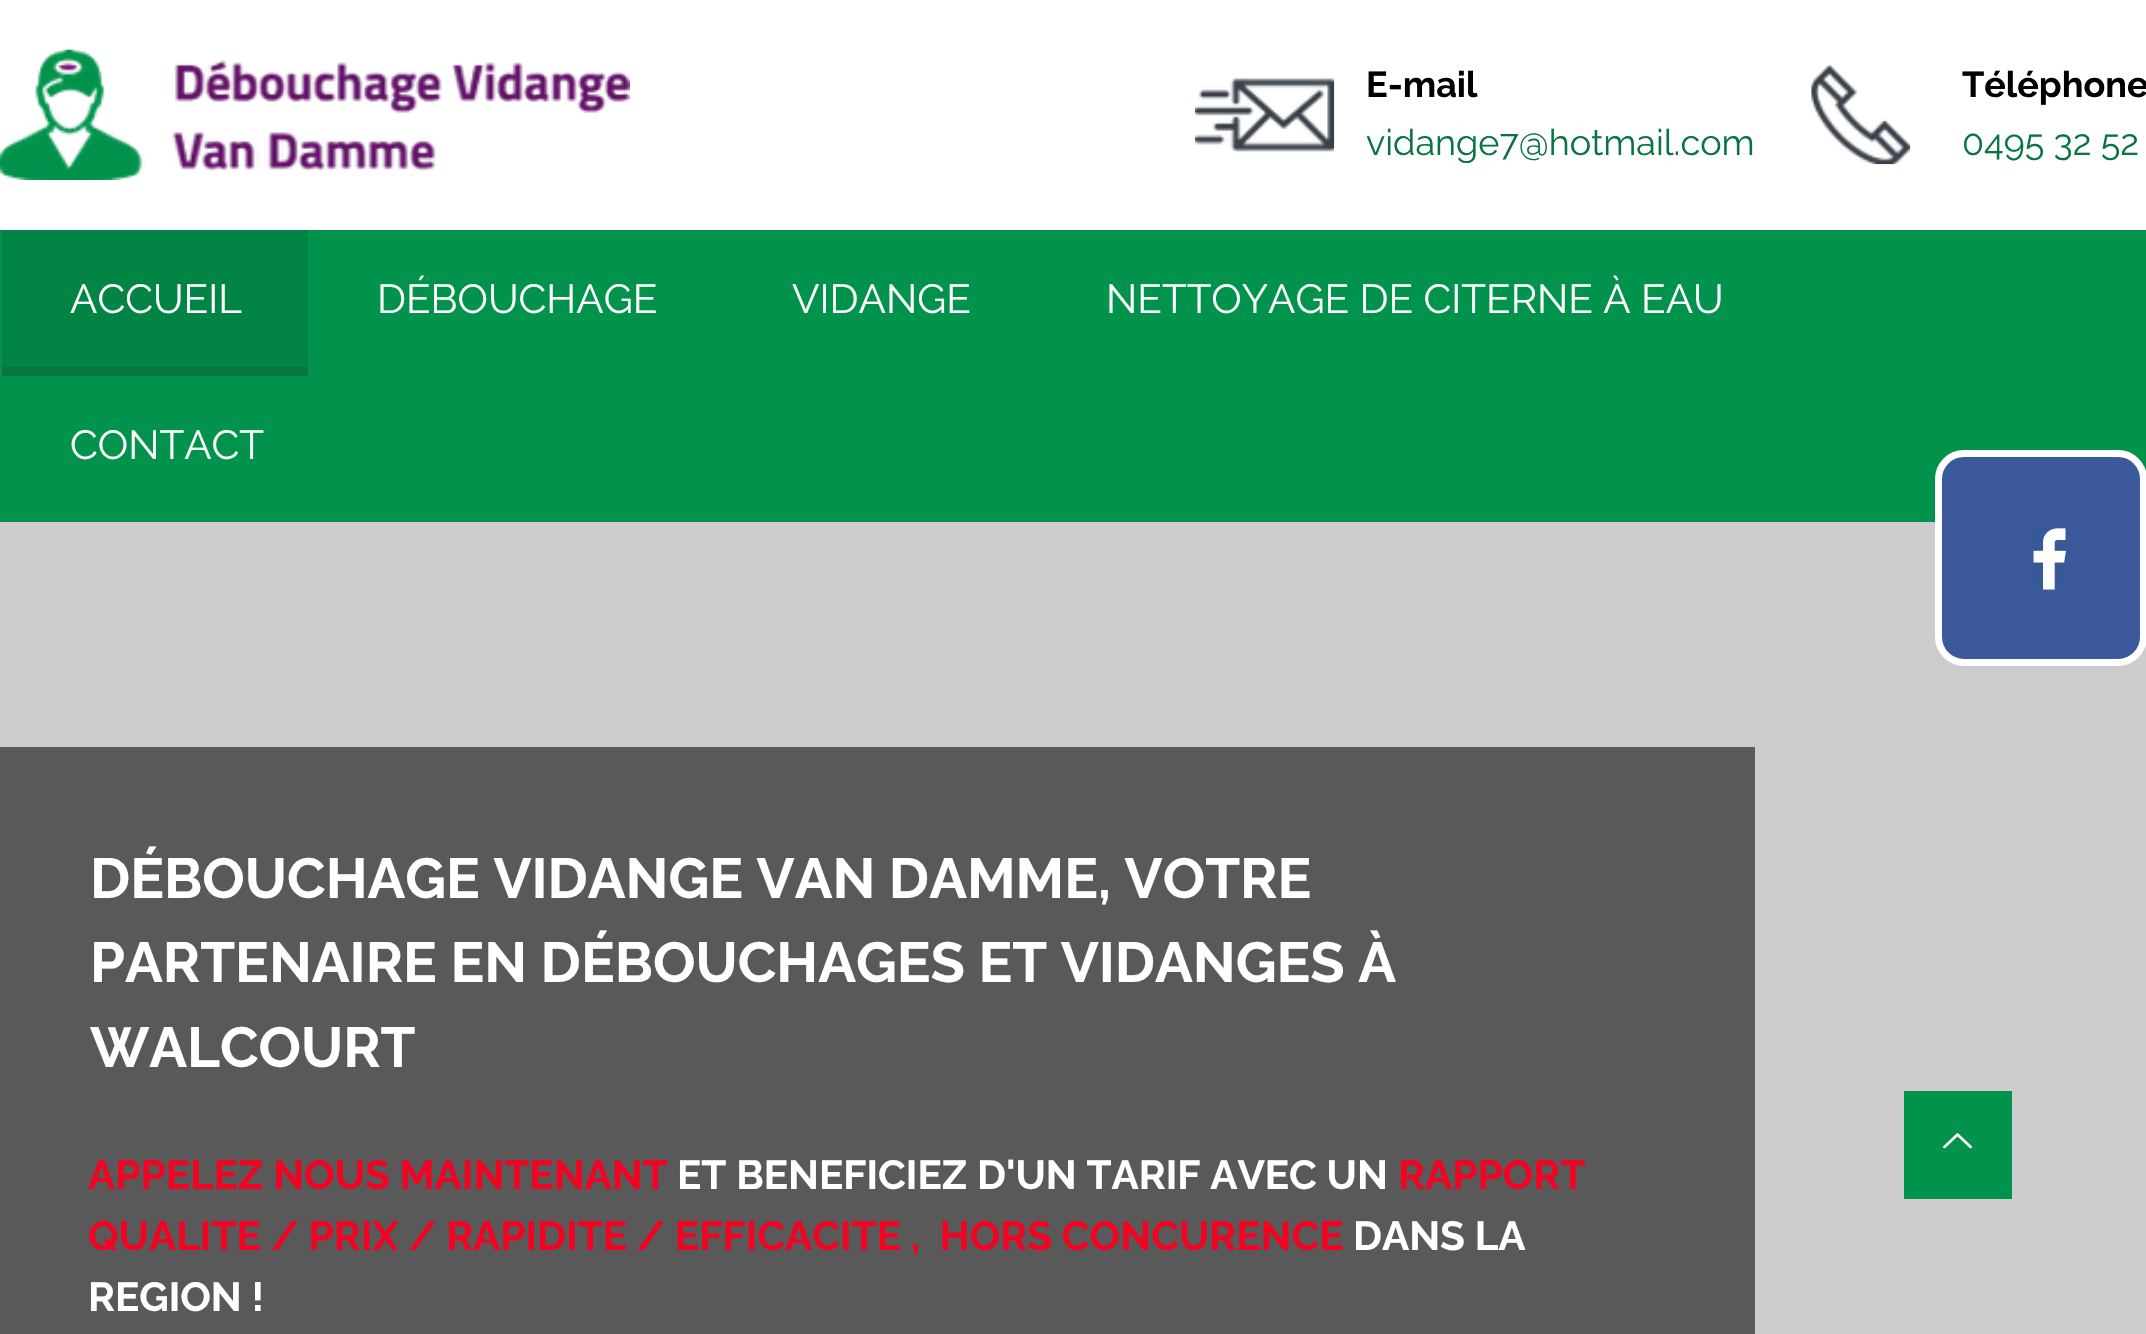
static SkFont makeFont(const char* family, int weight, float size, bool italic = false) {
  SkFontStyle style(weight, SkFontStyle::kNormal_Width,
    italic ? SkFontStyle::kItalic_Slant : SkFontStyle::kUpright_Slant);
  SkFont result(fontMgr->matchFamilyStyle(family, style), size);
  result.setSubpixel(true);
  return result;
}

static void text(SkCanvas* c, const char* s, float x, float y, const SkFont& font, SkColor color) {
  SkPaint ink(SkColor4f::FromColor(color));
  ink.setAntiAlias(true);
  c->drawString(s, x, y, font, ink);
}

static void box(SkCanvas* c, float l, float t, float r, float b, SkColor color) {
  SkPaint ink(SkColor4f::FromColor(color));
  ink.setAntiAlias(true);
  c->drawRect(SkRect::MakeLTRB(l, t, r, b), ink);
}

static void picture(SkCanvas* c, const char* path, float l, float t, float r, float b) {
  auto image = SkImages::DeferredFromEncodedData(SkData::MakeFromFileName(path));
  c->drawImageRect(image, SkRect::MakeLTRB(l, t, r, b), SkSamplingOptions());
}

void draw(SkCanvas* c) {
  SkPaint paint;
  paint.setAntiAlias(true);
  c->clear(0xffffffff);
  picture(c, "img_01.png", 0, 49, 630, 180);
  picture(c, "img_02.png", 1194, 78, 1335, 152);
  SkFont face1 = makeFont("Raleway", 700, 36);
  text(c, "E-mail", 1366, 97, face1, 0xff000000);
  SkFont face2 = makeFont("Raleway", 400, 36);
  text(c, "vidange7@hotmail.com", 1366, 155, face2, 0xff087540);
  picture(c, "img_03.png", 1811, 65, 1911, 165);
  text(c, "Téléphone", 1962, 97, face1, 0xff000000);
  text(c, "0495 32 52", 1962, 155, face2, 0xff087540);
  box(c, 0, 230, 2146, 522, 0xff01934c);
  box(c, 2, 230, 308, 367, 0xff018444);
  box(c, 2, 367, 308, 376, 0xff087540);
  SkFont face3 = makeFont("Raleway", 400, 40.5f);
  text(c, "ACCUEIL", 70, 313, face3, 0xffffffff);
  text(c, "DÉBOUCHAGE", 377, 313, face3, 0xffffffff);
  text(c, "VIDANGE", 792, 313, face3, 0xffffffff);
  text(c, "NETTOYAGE DE CITERNE À EAU", 1106, 313, face3, 0xffffffff);
  text(c, "CONTACT", 70, 459, face3, 0xffffffff);
  box(c, 0, 522, 2146, 1334, 0xffcccccc);
  paint.setColor(0xff3b599b);
  c->drawRoundRect(SkRect::MakeLTRB(1938.5f, 453.5f, 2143.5f, 662.5f), 25.5f, 25.5f, paint);
  paint.setStyle(SkPaint::kStroke_Style);
  paint.setStrokeWidth(7);
  paint.setColor(0xffffffff);
  c->drawRoundRect(SkRect::MakeLTRB(1938.5f, 453.5f, 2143.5f, 662.5f), 25.5f, 25.5f, paint);
  picture(c, "img_04.png", 2033, 528, 2066, 590);
  box(c, 0, 747, 1755, 1334, 0xff595959);
  SkFont face4 = makeFont("Raleway", 700, 56.25f);
  text(c, "DÉBOUCHAGE VIDANGE VAN DAMME, VOTRE", 90, 898, face4, 0xffffffff);
  text(c, "PARTENAIRE EN DÉBOUCHAGES ET VIDANGES À", 90, 982, face4, 0xffffffff);
  text(c, "WALCOURT", 90, 1067, face4, 0xffffffff);
  SkFont face5 = makeFont("Raleway", 700, 40.5f);
  text(c, "APPELEZ NOUS MAINTENANT", 88, 1189, face5, 0xfff30321);
  text(c, "ET BENEFICIEZ D'UN TARIF AVEC UN", 677, 1189, face5, 0xffffffff);
  text(c, "RAPPORT", 1398, 1189, face5, 0xfff30321);
  text(c, "QUALITE / PRIX / RAPIDITE / EFFICACITE ,  HORS CONCURENCE", 88, 1250, face5, 0xfff30321);
  text(c, "DANS LA", 1353, 1250, face5, 0xffffffff);
  text(c, "REGION !", 88, 1311, face5, 0xffffffff);
  box(c, 1904, 1091, 2012, 1199, 0xff01934c);
  picture(c, "img_05.png", 1943, 1133, 1972, 1149);
}
